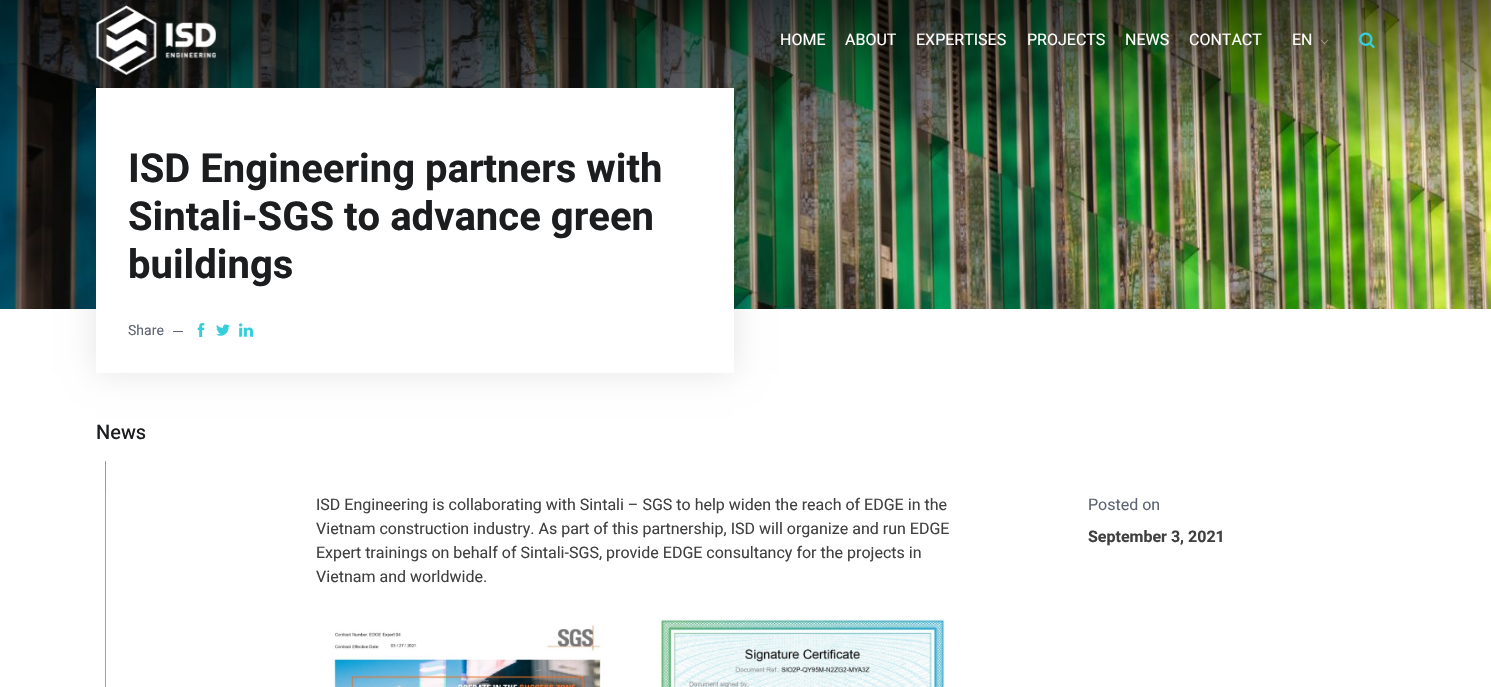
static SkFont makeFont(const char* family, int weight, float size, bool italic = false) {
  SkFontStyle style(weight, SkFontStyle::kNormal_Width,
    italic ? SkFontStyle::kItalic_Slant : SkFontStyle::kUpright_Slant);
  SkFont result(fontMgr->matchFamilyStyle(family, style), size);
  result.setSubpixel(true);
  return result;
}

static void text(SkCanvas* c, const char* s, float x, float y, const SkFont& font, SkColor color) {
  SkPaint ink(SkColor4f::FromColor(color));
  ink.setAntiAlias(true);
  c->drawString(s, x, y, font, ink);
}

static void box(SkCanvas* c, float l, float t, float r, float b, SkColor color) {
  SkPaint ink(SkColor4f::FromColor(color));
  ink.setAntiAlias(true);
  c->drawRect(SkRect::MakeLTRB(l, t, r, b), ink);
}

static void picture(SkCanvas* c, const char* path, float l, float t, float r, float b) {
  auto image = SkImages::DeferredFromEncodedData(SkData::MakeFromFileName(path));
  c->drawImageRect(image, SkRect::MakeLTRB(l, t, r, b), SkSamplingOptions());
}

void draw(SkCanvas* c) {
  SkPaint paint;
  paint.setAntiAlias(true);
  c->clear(0xffffffff);
  picture(c, "img_03.png", 0, 0, 1491, 309);
  paint.setColor(0x1a000000);
  paint.setMaskFilter(SkMaskFilter::MakeBlur(kNormal_SkBlurStyle, 15));
  c->drawRect(SkRect::MakeLTRB(96, 88, 734, 373), paint);
  paint.setMaskFilter(nullptr);
  picture(c, "img_01.png", 95, 5, 216, 75);
  SkFont face1 = makeFont("Heebo", 400, 16);
  text(c, "HOME", 780, 45, face1, 0xffffffff);
  text(c, "ABOUT", 845, 45, face1, 0xffffffff);
  text(c, "EXPERTISES", 916, 45, face1, 0xffffffff);
  text(c, "PROJECTS", 1027, 45, face1, 0xffffffff);
  text(c, "NEWS", 1125, 45, face1, 0xffffffff);
  text(c, "CONTACT", 1189, 45, face1, 0xffffffff);
  text(c, "EN", 1292, 45, face1, 0xffffffff);
  paint.setColor(0x80ffffff);
  c->drawPath(SkPathBuilder().moveTo(1328, 39.5f).lineTo(1328.5f, 40).lineTo(1324.5f, 44).lineTo(1324, 43.5f).close().detach(), paint);
  c->drawPath(SkPathBuilder().moveTo(1321, 39.5f).lineTo(1325, 43.5f).lineTo(1324.5f, 44).lineTo(1320.5f, 40).close().detach(), paint);
  box(c, 1338, 24, 1339, 56, 0x33e1ffff);
  picture(c, "img_02.png", 1359, 32, 1375, 49);
  box(c, 96, 88, 734, 373, 0xffffffff);
  SkFont face2 = makeFont("Heebo", 700, 40);
  text(c, "ISD Engineering partners with", 128, 182, face2, 0xff1c1d1f);
  text(c, "Sintali-SGS to advance green", 128, 230, face2, 0xff1c1d1f);
  text(c, "buildings", 128, 278, face2, 0xff1c1d1f);
  SkFont face3 = makeFont("Heebo", 400, 14);
  text(c, "Share", 128, 335, face3, 0xff5c6472);
  box(c, 173, 331, 183, 332, 0xff5c6472);
  picture(c, "img_04.png", 197, 323, 205, 338);
  picture(c, "img_05.png", 216, 324, 230, 336);
  picture(c, "img_06.png", 239, 323, 253, 337);
  SkFont face4 = makeFont("Heebo", 500, 20);
  text(c, "News", 96, 439, face4, 0xff1c1d1f);
  box(c, 105, 461, 106, 491, 0xffae85d4);
  box(c, 105, 491, 106, 687, 0xff37cedc);
  text(c, "ISD Engineering is collaborating with Sintali – SGS to help widen the reach of EDGE in the", 316, 510, face1, 0xff404040);
  text(c, "Vietnam construction industry. As part of this partnership, ISD will organize and run EDGE", 316, 534, face1, 0xff404040);
  text(c, "Expert trainings on behalf of Sintali-SGS, provide EDGE consultancy for the projects in", 316, 558, face1, 0xff404040);
  text(c, "Vietnam and worldwide.", 316, 582, face1, 0xff404040);
  picture(c, "img_07.png", 330, 624, 601, 687);
  picture(c, "img_08.png", 658, 619, 946, 687);
  text(c, "Posted on", 1088, 510, face1, 0xff5c6472);
  SkFont face5 = makeFont("Heebo", 700, 16);
  text(c, "September 3, 2021", 1088, 542, face5, 0xff404040);
}
